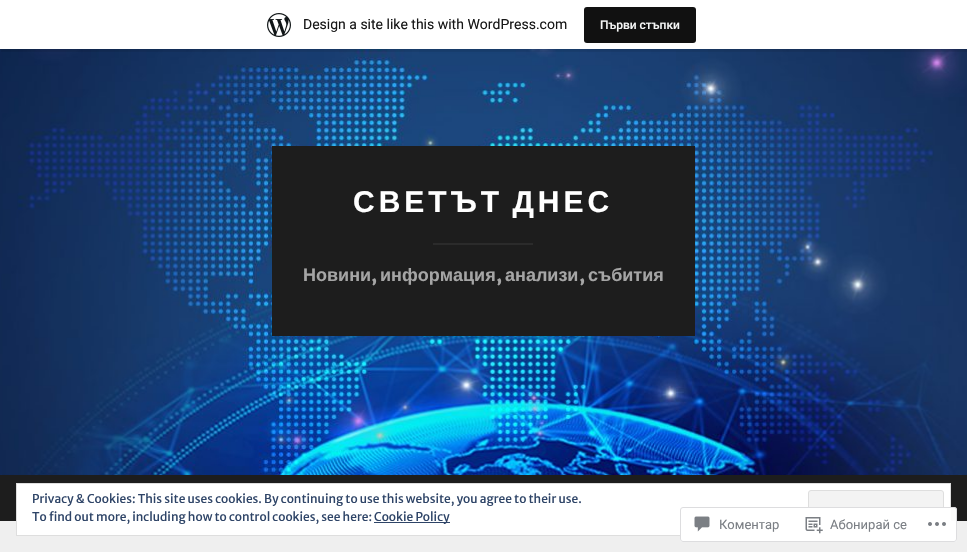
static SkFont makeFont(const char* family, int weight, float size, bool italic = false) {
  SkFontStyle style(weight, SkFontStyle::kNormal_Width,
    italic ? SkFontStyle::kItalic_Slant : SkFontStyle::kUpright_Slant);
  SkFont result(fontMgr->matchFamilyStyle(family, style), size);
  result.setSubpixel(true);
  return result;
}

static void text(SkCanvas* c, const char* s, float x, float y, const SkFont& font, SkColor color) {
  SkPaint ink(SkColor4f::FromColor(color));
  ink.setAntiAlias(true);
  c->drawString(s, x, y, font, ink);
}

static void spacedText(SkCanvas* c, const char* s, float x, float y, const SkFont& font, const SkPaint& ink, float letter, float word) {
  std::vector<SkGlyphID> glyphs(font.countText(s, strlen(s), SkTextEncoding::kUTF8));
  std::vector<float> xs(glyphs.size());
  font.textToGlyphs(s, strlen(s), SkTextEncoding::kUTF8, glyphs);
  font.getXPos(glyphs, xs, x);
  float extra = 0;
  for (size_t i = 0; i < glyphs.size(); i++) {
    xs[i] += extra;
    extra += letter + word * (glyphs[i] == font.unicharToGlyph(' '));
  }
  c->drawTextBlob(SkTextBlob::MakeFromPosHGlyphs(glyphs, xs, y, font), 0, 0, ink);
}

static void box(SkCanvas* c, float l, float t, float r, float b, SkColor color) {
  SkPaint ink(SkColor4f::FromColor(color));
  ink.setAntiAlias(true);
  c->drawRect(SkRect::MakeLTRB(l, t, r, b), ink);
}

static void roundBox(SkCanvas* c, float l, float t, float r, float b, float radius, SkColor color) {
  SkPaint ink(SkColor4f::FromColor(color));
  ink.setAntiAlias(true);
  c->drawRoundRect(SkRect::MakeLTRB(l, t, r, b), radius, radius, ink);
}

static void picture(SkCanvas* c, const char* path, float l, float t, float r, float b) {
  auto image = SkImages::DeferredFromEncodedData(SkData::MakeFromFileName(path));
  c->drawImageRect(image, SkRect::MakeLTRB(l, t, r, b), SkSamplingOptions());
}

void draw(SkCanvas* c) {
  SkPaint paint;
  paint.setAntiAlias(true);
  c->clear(0xffefefef);
  picture(c, "img_02.png", 0, 49, 967, 475);
  paint.setColor(0x0d000000);
  paint.setMaskFilter(SkMaskFilter::MakeBlur(kNormal_SkBlurStyle, 1));
  c->drawRect(SkRect::MakeLTRB(0, 1, 967, 50), paint);
  paint.setMaskFilter(nullptr);
  paint.setColor(0x14000000);
  c->drawPath(SkPathBuilder().moveTo(1, 49).lineTo(1, 52).lineTo(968, 52).lineTo(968, 3).lineTo(967, 3).lineTo(967, 49).close().detach(), paint);
  box(c, 0, 0, 967, 49, 0xffffffff);
  picture(c, "img_01.png", 267, 13, 291, 37);
  SkFont face1 = makeFont("Roboto", 400, 14);
  text(c, "Design a site like this with WordPress.com", 303, 29, face1, 0xff171717);
  roundBox(c, 584, 7, 696, 43, 3, 0xff111111);
  SkFont face2 = makeFont("Roboto", 500, 12);
  text(c, "Първи стъпки", 600, 29, face2, 0xfff6f7f7);
  box(c, 272, 146, 695, 336, 0xff1d1d1d);
  SkFont face3 = makeFont("Liberation Sans", 700, 30);
  paint.setColor(0xffffffff);
  spacedText(c, "СВЕТЪТ ДНЕС", 353, 212, face3, paint, 4, -3);
  box(c, 433, 243, 533, 245, 0xff2b2b2b);
  SkFont face4 = makeFont("Liberation Sans", 700, 18);
  text(c, "Новини", 303, 281, face4, 0xffa5a5a5);
  SkFont face5 = makeFont("Merriweather Sans", 800, 18);
  text(c, ",", 371, 281, face5, 0xffa5a5a5);
  text(c, "информация", 380, 281, face4, 0xffa5a5a5);
  text(c, ",", 496, 281, face5, 0xffa5a5a5);
  text(c, "анализи", 505, 281, face4, 0xffa5a5a5);
  text(c, ",", 579, 281, face5, 0xffa5a5a5);
  text(c, "събития", 588, 281, face4, 0xffa5a5a5);
  box(c, 0, 475, 967, 521, 0xff1d1d1d);
  c->drawRect(SkRect::MakeLTRB(16.5f, 483.5f, 950.5f, 535.5f), paint);
  paint.setStyle(SkPaint::kStroke_Style);
  paint.setStrokeWidth(1);
  paint.setColor(0xffdedede);
  c->drawRect(SkRect::MakeLTRB(16.5f, 483.5f, 950.5f, 535.5f), paint);
  SkFont face6 = makeFont("Merriweather Sans", 400, 12);
  text(c, "Privacy & Cookies: This site uses cookies. By continuing to use this website, you agree to their use.", 32, 503, face6, 0xff2e4467);
  paint.setStyle(SkPaint::kFill_Style);
  paint.setColor(0xfff3f3f3);
  c->drawRoundRect(SkRect::MakeLTRB(808.5f, 490.5f, 943.5f, 528.5f), 2.5f, 2.5f, paint);
  paint.setStyle(SkPaint::kStroke_Style);
  paint.setColor(0xffdedede);
  c->drawRoundRect(SkRect::MakeLTRB(808.5f, 490.5f, 943.5f, 528.5f), 2.5f, 2.5f, paint);
  text(c, "To find out more, including how to control cookies, see here:", 32, 521, face6, 0xff2e4467);
  box(c, 374, 522, 450, 523, 0xff2e4467);
  text(c, "Cookie Policy", 374, 521, face6, 0xff2e4467);
  roundBox(c, 680, 507, 957, 542, 3, 0xfaffffff);
  paint.setColor(0xfadcdcde);
  c->drawRoundRect(SkRect::MakeLTRB(680.5f, 507.5f, 956.5f, 541.5f), 2.5f, 2.5f, paint);
  picture(c, "img_03.png", 694, 516, 710, 532);
  SkFont face7 = makeFont("Roboto", 400, 13);
  text(c, "Коментар", 719, 529, face7, 0xff7b7f85);
  picture(c, "img_04.png", 805, 517, 823, 534);
  text(c, "Абонирай се", 830, 529, face7, 0xff7b7f85);
  picture(c, "img_05.png", 928, 522, 946, 526);
}
